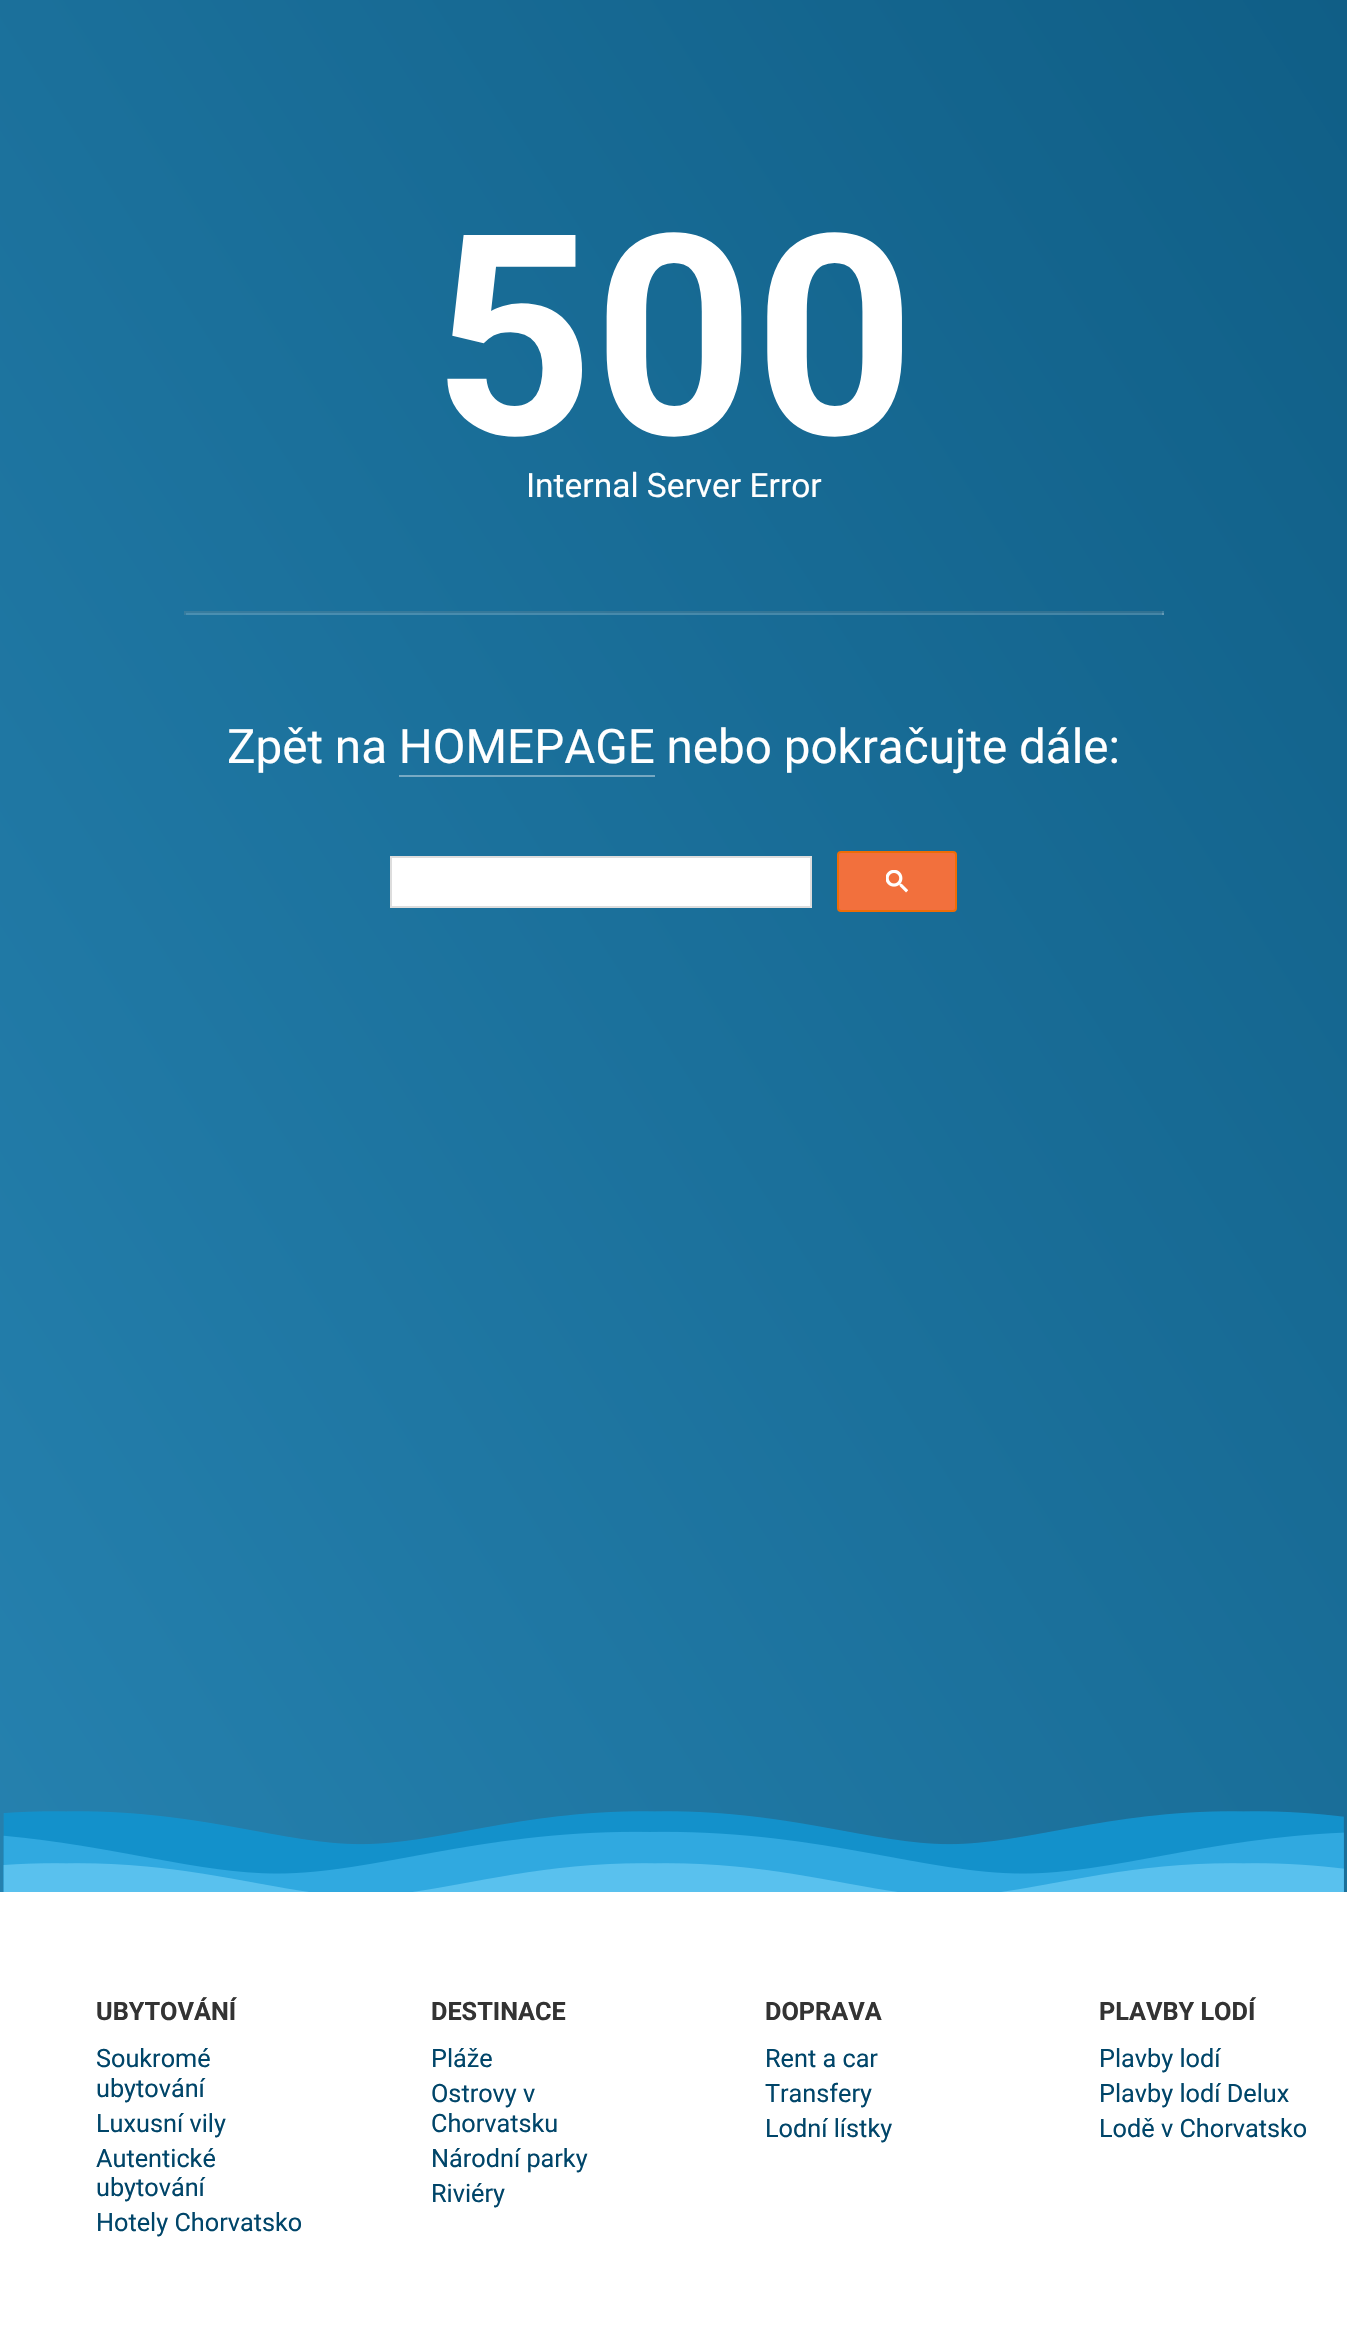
static SkFont makeFont(const char* family, int weight, float size, bool italic = false) {
  SkFontStyle style(weight, SkFontStyle::kNormal_Width,
    italic ? SkFontStyle::kItalic_Slant : SkFontStyle::kUpright_Slant);
  SkFont result(fontMgr->matchFamilyStyle(family, style), size);
  result.setSubpixel(true);
  return result;
}

static void text(SkCanvas* c, const char* s, float x, float y, const SkFont& font, SkColor color) {
  SkPaint ink(SkColor4f::FromColor(color));
  ink.setAntiAlias(true);
  c->drawString(s, x, y, font, ink);
}

static void box(SkCanvas* c, float l, float t, float r, float b, SkColor color) {
  SkPaint ink(SkColor4f::FromColor(color));
  ink.setAntiAlias(true);
  c->drawRect(SkRect::MakeLTRB(l, t, r, b), ink);
}

static void picture(SkCanvas* c, const char* path, float l, float t, float r, float b) {
  auto image = SkImages::DeferredFromEncodedData(SkData::MakeFromFileName(path));
  c->drawImageRect(image, SkRect::MakeLTRB(l, t, r, b), SkSamplingOptions());
}

void draw(SkCanvas* c) {
  SkPaint paint;
  paint.setAntiAlias(true);
  c->clear(0xffffffff);
  {
    const SkColor colors[] = {0xff004569, 0xff42afe4, 0xff004569, 0xff407890};
    const float stops[] = {0, 0.33f, 0.67f, 1};
    const SkPoint ends[] = {{-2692, 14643}, {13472, 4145}};
    paint.setShader(SkGradientShader::MakeLinear(ends, colors, stops, 4, SkTileMode::kClamp));
    paint.setAlpha(255);
  }
  c->drawRect(SkRect::MakeLTRB(0, 0, 1347, 1892), paint);
  {
    const SkColor colors[] = {0xff336a87, 0xff68bfe9, 0xff336a87, 0xff6693a6};
    const float stops[] = {0, 0.33f, 0.67f, 1};
    const SkPoint ends[] = {{-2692, 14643}, {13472, 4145}};
    paint.setShader(SkGradientShader::MakeLinear(ends, colors, stops, 4, SkTileMode::kClamp));
    paint.setAlpha(255);
  }
  c->drawRect(SkRect::MakeLTRB(184, 613, 1164, 615), paint);
  {
    const SkColor colors[] = {0xff205774, 0xff55acd6, 0xff205774, 0xff538093};
    const float stops[] = {0, 0.33f, 0.67f, 1};
    const SkPoint ends[] = {{-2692, 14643}, {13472, 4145}};
    paint.setShader(SkGradientShader::MakeLinear(ends, colors, stops, 4, SkTileMode::kClamp));
    paint.setAlpha(255);
  }
  c->drawRect(SkRect::MakeLTRB(184, 611, 1164, 613), paint);
  {
    const SkColor colors[] = {0xff668fa5, 0xff8ecfef, 0xff668fa5, 0xff8caebc};
    const float stops[] = {0, 0.33f, 0.67f, 1};
    const SkPoint ends[] = {{-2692, 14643}, {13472, 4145}};
    paint.setShader(SkGradientShader::MakeLinear(ends, colors, stops, 4, SkTileMode::kClamp));
    paint.setAlpha(255);
  }
  c->drawRect(SkRect::MakeLTRB(399, 775, 655, 777), paint);
  picture(c, "img_01.png", 3, 1811, 1344, 1892);
  SkFont face1 = makeFont("Roboto", 700, 280);
  text(c, "500", 433, 434, face1, 0xffffffff);
  SkFont face2 = makeFont("Roboto", 400, 33.5f);
  text(c, "Internal Server Error", 526, 497, face2, 0xffffffff);
  box(c, 1162, 611, 1164, 615, 0xff4081a2);
  box(c, 1162, 613, 1164, 615, 0xff669ab5);
  box(c, 184, 611, 186, 615, 0xff377c9f);
  SkFont face3 = makeFont("Roboto", 400, 47.6f);
  text(c, "Zpět na HOMEPAGE nebo pokračujte dále:", 227, 763, face3, 0xffffffff);
  paint.setShader(nullptr);
  paint.setColor(0xffffffff);
  c->drawRect(SkRect::MakeLTRB(391, 857, 811, 907), paint);
  paint.setStyle(SkPaint::kStroke_Style);
  paint.setStrokeWidth(2);
  paint.setColor(0xffdddddd);
  c->drawRect(SkRect::MakeLTRB(391, 857, 811, 907), paint);
  paint.setStyle(SkPaint::kFill_Style);
  paint.setColor(0xfff2703d);
  c->drawRoundRect(SkRect::MakeLTRB(838, 852, 956, 911), 3, 3, paint);
  paint.setStyle(SkPaint::kStroke_Style);
  paint.setColor(0xffee6c06);
  c->drawRoundRect(SkRect::MakeLTRB(838, 852, 956, 911), 3, 3, paint);
  picture(c, "img_02.png", 886, 870, 908, 893);
  SkFont face4 = makeFont("Roboto", 700, 25.25f);
  text(c, "UBYTOVÁNÍ", 96, 2020, face4, 0xff333333);
  SkFont face5 = makeFont("Roboto", 400, 25.25f);
  text(c, "Soukromé", 96, 2067, face5, 0xff004569);
  text(c, "ubytování", 96, 2097, face5, 0xff004569);
  text(c, "Luxusní vily", 96, 2132, face5, 0xff004569);
  text(c, "Autentické", 96, 2167, face5, 0xff004569);
  text(c, "ubytování", 96, 2196, face5, 0xff004569);
  text(c, "Hotely Chorvatsko", 96, 2231, face5, 0xff004569);
  text(c, "DESTINACE", 431, 2020, face4, 0xff333333);
  text(c, "Pláže", 431, 2067, face5, 0xff004569);
  text(c, "Ostrovy v", 431, 2102, face5, 0xff004569);
  text(c, "Chorvatsku", 431, 2132, face5, 0xff004569);
  text(c, "Národní parky", 431, 2167, face5, 0xff004569);
  text(c, "Riviéry", 431, 2202, face5, 0xff004569);
  text(c, "DOPRAVA", 765, 2020, face4, 0xff333333);
  text(c, "Rent a car", 765, 2067, face5, 0xff004569);
  text(c, "Transfery", 765, 2102, face5, 0xff004569);
  text(c, "Lodní lístky", 765, 2137, face5, 0xff004569);
  text(c, "PLAVBY LODÍ", 1099, 2020, face4, 0xff333333);
  text(c, "Plavby lodí", 1099, 2067, face5, 0xff004569);
  text(c, "Plavby lodí Delux", 1099, 2102, face5, 0xff004569);
  text(c, "Lodě v Chorvatsko", 1099, 2137, face5, 0xff004569);
}
